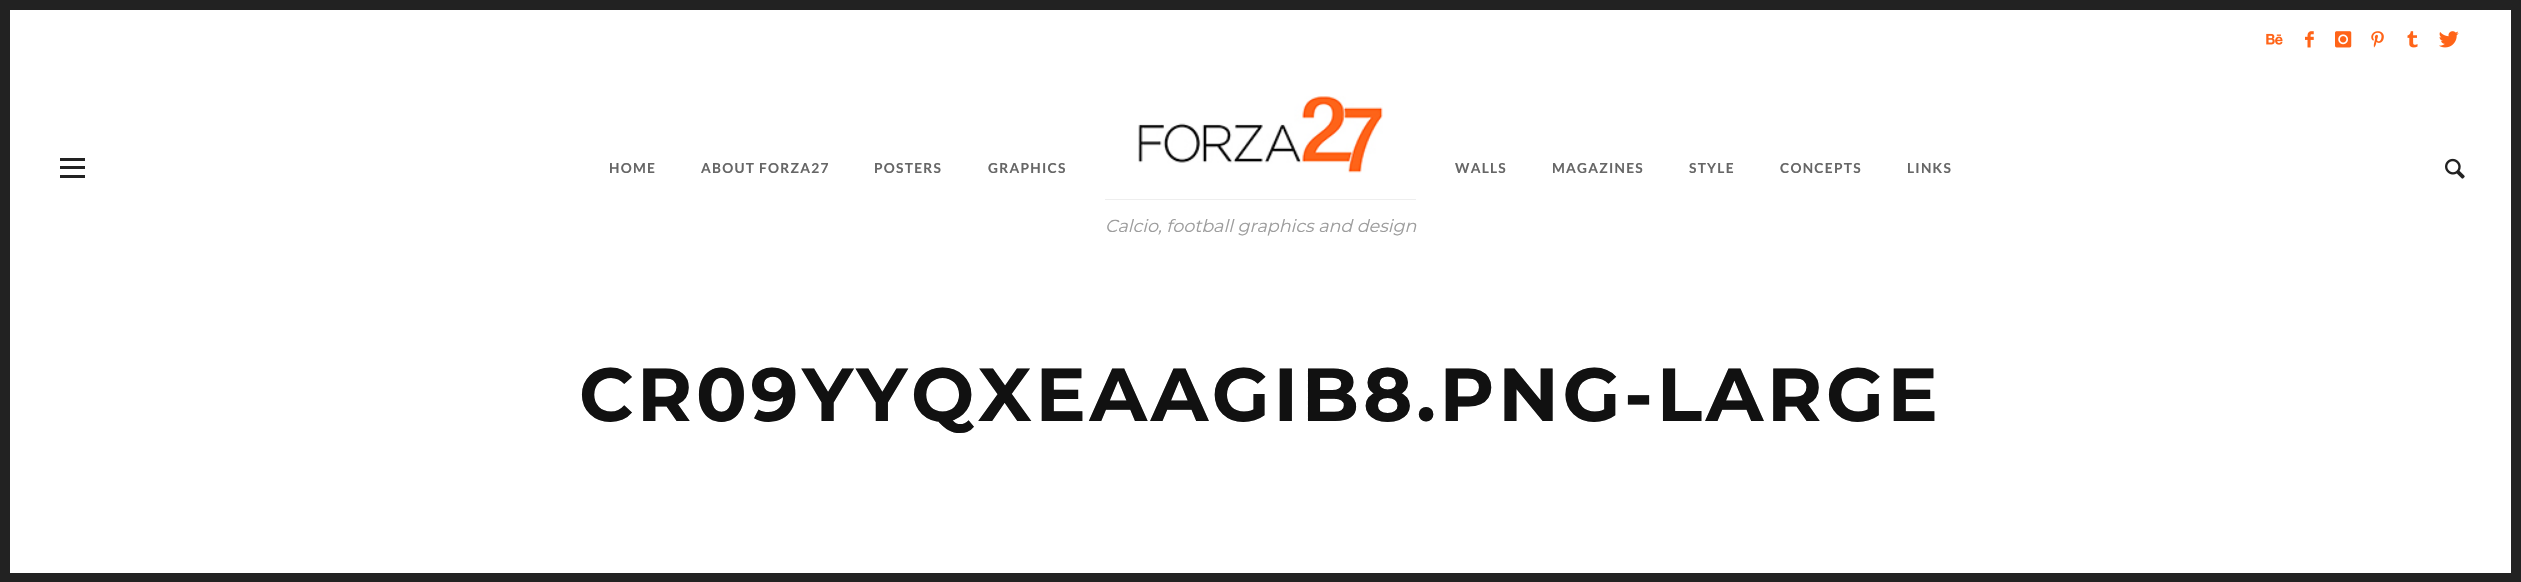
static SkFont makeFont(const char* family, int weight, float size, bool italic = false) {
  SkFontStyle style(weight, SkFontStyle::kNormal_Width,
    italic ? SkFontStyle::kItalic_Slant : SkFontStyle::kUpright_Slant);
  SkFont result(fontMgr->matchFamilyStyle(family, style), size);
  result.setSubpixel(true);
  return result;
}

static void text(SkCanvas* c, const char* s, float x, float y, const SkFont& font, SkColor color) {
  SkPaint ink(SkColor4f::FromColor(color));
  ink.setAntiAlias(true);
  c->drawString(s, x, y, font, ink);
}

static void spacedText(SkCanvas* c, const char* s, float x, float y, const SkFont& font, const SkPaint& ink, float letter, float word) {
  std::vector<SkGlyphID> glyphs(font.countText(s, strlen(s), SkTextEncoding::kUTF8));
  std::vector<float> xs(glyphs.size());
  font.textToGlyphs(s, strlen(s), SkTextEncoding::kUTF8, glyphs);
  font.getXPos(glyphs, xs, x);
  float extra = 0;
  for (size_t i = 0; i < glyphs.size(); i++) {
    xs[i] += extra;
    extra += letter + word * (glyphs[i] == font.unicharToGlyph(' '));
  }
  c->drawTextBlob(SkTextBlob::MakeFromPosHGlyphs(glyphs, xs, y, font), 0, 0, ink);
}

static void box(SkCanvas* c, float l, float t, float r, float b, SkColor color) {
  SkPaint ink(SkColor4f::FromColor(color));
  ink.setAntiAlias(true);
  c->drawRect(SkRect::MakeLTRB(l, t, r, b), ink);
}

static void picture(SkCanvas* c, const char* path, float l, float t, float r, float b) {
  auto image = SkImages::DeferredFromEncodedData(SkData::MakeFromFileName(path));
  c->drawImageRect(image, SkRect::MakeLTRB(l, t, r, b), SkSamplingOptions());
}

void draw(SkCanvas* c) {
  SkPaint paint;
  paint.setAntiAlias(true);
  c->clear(0xffffffff);
  paint.setStyle(SkPaint::kStroke_Style);
  paint.setStrokeWidth(10);
  paint.setColor(0xff222222);
  c->drawRect(SkRect::MakeLTRB(5, 5, 2516, 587), paint);
  picture(c, "img_01.png", 2266, 33, 2283, 45);
  picture(c, "img_02.png", 2305, 31, 2314, 48);
  picture(c, "img_03.png", 2335, 31, 2352, 48);
  picture(c, "img_04.png", 2371, 31, 2384, 48);
  picture(c, "img_05.png", 2407, 31, 2418, 48);
  picture(c, "img_06.png", 2439, 31, 2459, 48);
  SkFont face1 = makeFont("Lato", 700, 13.75f);
  paint.setStyle(SkPaint::kFill_Style);
  paint.setColor(0xff666666);
  spacedText(c, "HOME", 609, 173, face1, paint, 1.25f, 0);
  spacedText(c, "ABOUT FORZA27", 701, 173, face1, paint, 1.25f, 0);
  spacedText(c, "POSTERS", 874, 173, face1, paint, 1.25f, 0);
  spacedText(c, "GRAPHICS", 988, 173, face1, paint, 1.25f, 0);
  spacedText(c, "WALLS", 1455, 173, face1, paint, 1.25f, 0);
  spacedText(c, "MAGAZINES", 1552, 173, face1, paint, 1.25f, 0);
  spacedText(c, "STYLE", 1689, 173, face1, paint, 1.25f, 0);
  spacedText(c, "CONCEPTS", 1780, 173, face1, paint, 1.25f, 0);
  spacedText(c, "LINKS", 1907, 173, face1, paint, 1.25f, 0);
  box(c, 60, 166, 85, 169, 0xff222222);
  box(c, 60, 158, 85, 161, 0xff222222);
  box(c, 60, 175, 85, 178, 0xff222222);
  picture(c, "img_07.png", 2445, 158, 2465, 179);
  picture(c, "img_08.png", 1138, 96, 1383, 173);
  box(c, 1105, 199, 1416, 200, 0xffeeeeee);
  SkFont face2 = makeFont("Montserrat", 400, 17.5f, true);
  text(c, "Calcio, football graphics and design", 1105, 232, face2, 0xff9c9c9c);
  SkFont face3 = makeFont("Montserrat", 700, 75);
  paint.setColor(0xff111111);
  spacedText(c, "CR09YYQXEAAGIB8.PNG-LARGE", 579, 421, face3, paint, 3.75f, 0);
  box(c, 10, 573, 2511, 582, 0xff222222);
}
